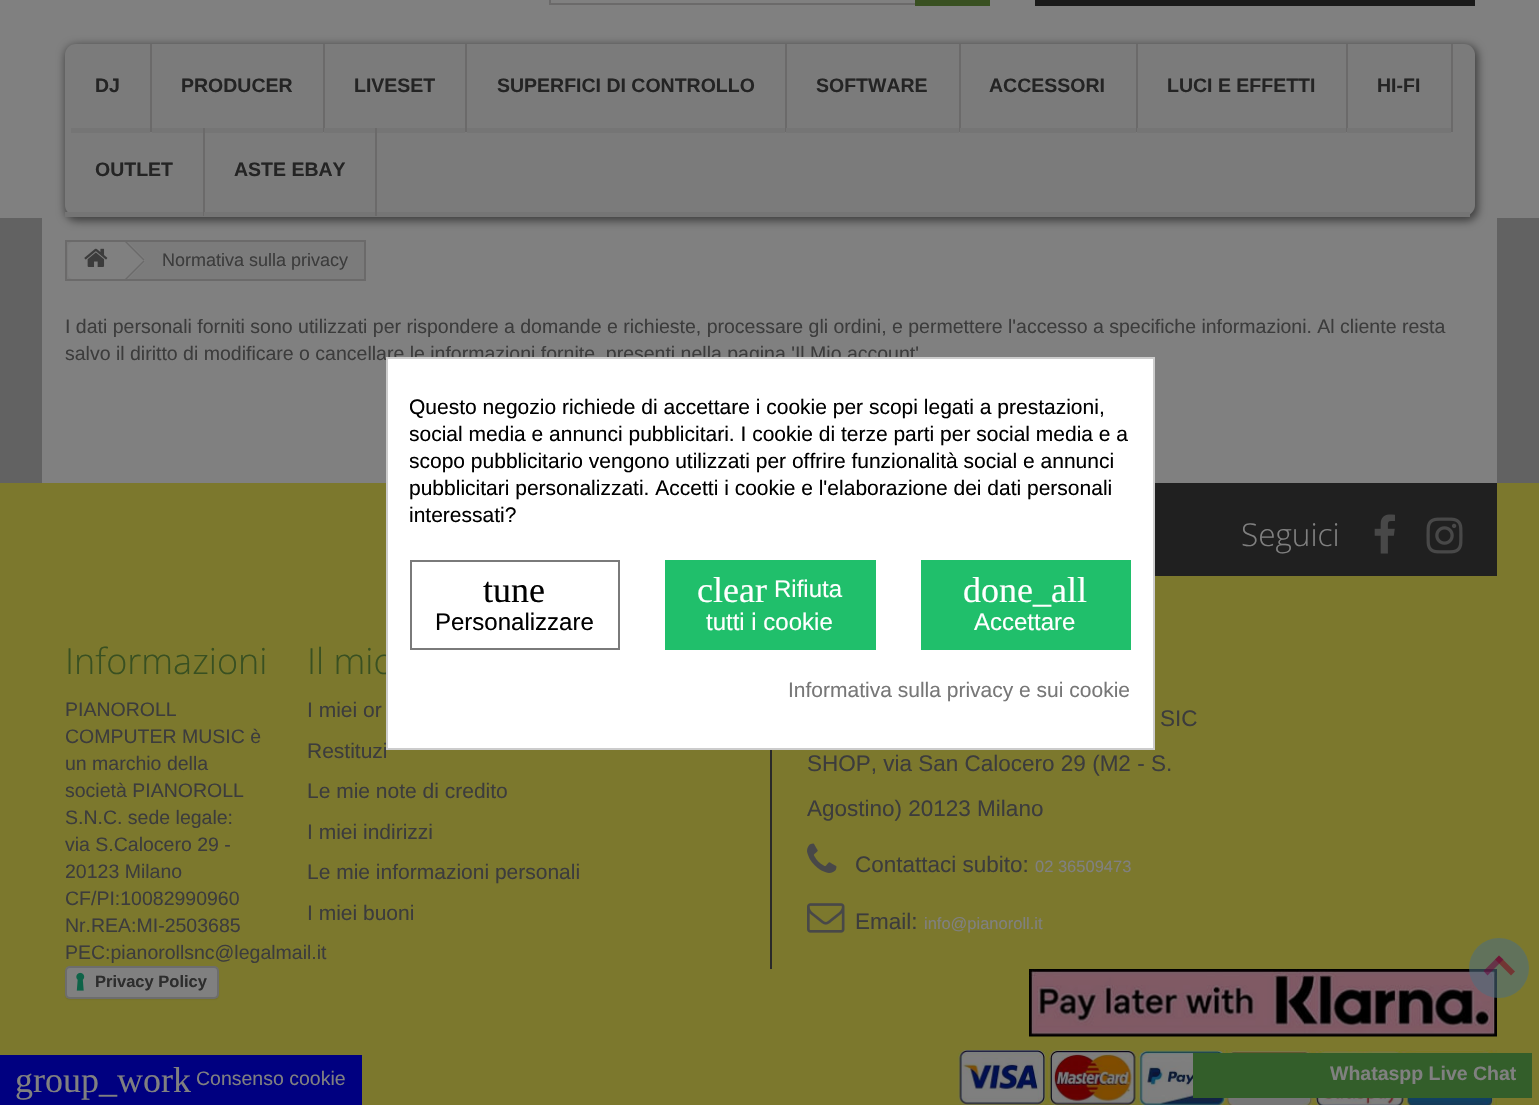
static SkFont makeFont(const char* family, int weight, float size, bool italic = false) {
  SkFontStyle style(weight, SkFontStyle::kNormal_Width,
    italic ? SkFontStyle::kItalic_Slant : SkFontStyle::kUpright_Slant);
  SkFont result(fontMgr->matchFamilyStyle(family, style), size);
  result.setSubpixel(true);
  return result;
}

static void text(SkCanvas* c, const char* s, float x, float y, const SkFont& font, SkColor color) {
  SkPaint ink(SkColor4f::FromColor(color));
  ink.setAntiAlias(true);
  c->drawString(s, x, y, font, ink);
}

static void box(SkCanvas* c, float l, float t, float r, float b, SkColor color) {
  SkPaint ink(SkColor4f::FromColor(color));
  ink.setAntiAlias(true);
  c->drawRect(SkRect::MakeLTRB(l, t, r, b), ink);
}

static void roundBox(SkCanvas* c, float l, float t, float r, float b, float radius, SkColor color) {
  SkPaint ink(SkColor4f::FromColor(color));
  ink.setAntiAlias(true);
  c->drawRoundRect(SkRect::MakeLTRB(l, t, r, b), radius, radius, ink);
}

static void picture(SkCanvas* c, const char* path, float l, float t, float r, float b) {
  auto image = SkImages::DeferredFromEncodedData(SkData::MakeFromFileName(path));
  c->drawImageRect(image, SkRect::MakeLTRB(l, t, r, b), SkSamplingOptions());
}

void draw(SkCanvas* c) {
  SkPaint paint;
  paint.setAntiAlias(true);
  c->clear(0xff808080);
  paint.setStyle(SkPaint::kStroke_Style);
  paint.setStrokeWidth(2);
  paint.setColor(0xff6b6a6a);
  c->drawRect(SkRect::MakeLTRB(550, -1, 989, 4), paint);
  box(c, 915, 0, 990, 6, 0xff395021);
  box(c, 1035, 0, 1475, 6, 0xff1a1a1a);
  box(c, 0, 218, 1539, 483, 0xff626262);
  box(c, 42, 218, 1497, 483, 0xff808080);
  paint.setStyle(SkPaint::kFill_Style);
  paint.setColor(0x80000000);
  paint.setMaskFilter(SkMaskFilter::MakeBlur(kNormal_SkBlurStyle, 4));
  c->drawRoundRect(SkRect::MakeLTRB(65, 45, 1478, 221), 12, 12, paint);
  paint.setMaskFilter(nullptr);
  roundBox(c, 65, 44, 1475, 216, 11, 0xff7b7b7b);
  box(c, 65, 212, 1470, 217, 0xff757575);
  box(c, 150, 44, 152, 132, 0xff6b6a6a);
  box(c, 71, 128, 150, 133, 0xff757575);
  SkFont face1 = makeFont("Liberation Sans", 700, 19.5f);
  text(c, "DJ", 95, 92, face1, 0xff242424);
  box(c, 323, 44, 325, 132, 0xff6b6a6a);
  box(c, 152, 128, 323, 133, 0xff757575);
  text(c, "PRODUCER", 181, 92, face1, 0xff242424);
  box(c, 465, 44, 467, 132, 0xff6b6a6a);
  box(c, 324, 128, 465, 133, 0xff757575);
  text(c, "LIVESET", 354, 92, face1, 0xff242424);
  box(c, 785, 44, 787, 132, 0xff6b6a6a);
  box(c, 467, 128, 785, 133, 0xff757575);
  text(c, "SUPERFICI DI CONTROLLO", 497, 92, face1, 0xff242424);
  box(c, 959, 44, 961, 132, 0xff6b6a6a);
  box(c, 786, 128, 959, 133, 0xff757575);
  text(c, "SOFTWARE", 816, 92, face1, 0xff242424);
  box(c, 1136, 44, 1138, 132, 0xff6b6a6a);
  box(c, 960, 128, 1136, 133, 0xff757575);
  text(c, "ACCESSORI", 989, 92, face1, 0xff242424);
  box(c, 1346, 44, 1348, 132, 0xff6b6a6a);
  box(c, 1137, 128, 1346, 133, 0xff757575);
  text(c, "LUCI E EFFETTI", 1167, 92, face1, 0xff242424);
  box(c, 1451, 44, 1453, 132, 0xff6b6a6a);
  box(c, 1347, 128, 1451, 133, 0xff757575);
  text(c, "HI-FI", 1377, 92, face1, 0xff242424);
  box(c, 203, 128, 205, 216, 0xff6b6a6a);
  text(c, "OUTLET", 95, 176, face1, 0xff242424);
  box(c, 375, 128, 377, 216, 0xff6b6a6a);
  box(c, 204, 212, 205, 216, 0xff757575);
  text(c, "ASTE EBAY", 234, 176, face1, 0xff242424);
  paint.setColor(0xff7b7b7b);
  c->drawRect(SkRect::MakeLTRB(66, 241, 365, 280), paint);
  paint.setStyle(SkPaint::kStroke_Style);
  paint.setColor(0xff6b6a6a);
  c->drawRect(SkRect::MakeLTRB(66, 241, 365, 280), paint);
  paint.setStyle(SkPaint::kFill_Style);
  paint.setColor(0xff808080);
  c->drawPath(SkPathBuilder().moveTo(73, 242).lineTo(125, 242).lineTo(125, 279).lineTo(73, 279).cubicTo(70, 279, 68, 277, 68, 274).lineTo(68, 247).cubicTo(68, 244, 70, 242, 73, 242).close().detach(), paint);
  c->save();
  c->clipRect(SkRect::MakeLTRB(66, 242, 365, 279));
  c->drawPath(SkPathBuilder().moveTo(127, 241).lineTo(144, 258).cubicTo(145, 260, 145, 262, 144, 263).lineTo(127, 280).cubicTo(125, 281, 124, 281, 122, 280).lineTo(105, 263).cubicTo(104, 262, 104, 260, 105, 258).lineTo(122, 241).cubicTo(124, 240, 125, 240, 127, 241).close().detach(), paint);
  c->restore();
  picture(c, "img_01.png", 84, 248, 108, 267);
  c->save();
  c->clipRect(SkRect::MakeLTRB(66, 242, 365, 279));
  paint.setColor(0xff6b6a6a);
  c->drawPath(SkPathBuilder().moveTo(125.5f, 240.5f).lineTo(144.5f, 259.5f).lineTo(143.5f, 260.5f).lineTo(124.5f, 241.5f).close().detach(), paint);
  c->drawPath(SkPathBuilder().moveTo(143.5f, 260.5f).lineTo(144.5f, 261.5f).lineTo(125.5f, 280.5f).lineTo(124.5f, 279.5f).close().detach(), paint);
  c->restore();
  SkFont face2 = makeFont("Liberation Sans", 400, 18);
  text(c, "Normativa sulla privacy", 162, 266, face2, 0xff3c3c3c);
  SkFont face3 = makeFont("Liberation Sans", 400, 19.5f);
  text(c, "I dati personali forniti sono utilizzati per rispondere a domande e richieste, processare gli ordini, e permettere l'accesso a specifiche informazioni. Al cliente resta", 65, 333, face3, 0xff3c3c3c);
  text(c, "salvo il diritto di modificare o cancellare le informazioni fornite, presenti nella pagina 'Il Mio account'", 65, 360, face3, 0xff3c3c3c);
  box(c, 0, 483, 1539, 1105, 0xff7c782d);
  box(c, 1155, 483, 1497, 576, 0xff202020);
  SkFont face4 = makeFont("Open Sans", 300, 31.5f);
  text(c, "Seguici", 1241, 546, face4, 0xff808080);
  picture(c, "img_02.png", 1374, 514, 1395, 554);
  picture(c, "img_03.png", 1426, 517, 1463, 554);
  SkFont face5 = makeFont("Open Sans", 300, 36);
  text(c, "Informazioni", 65, 674, face5, 0xff395021);
  text(c, "PIANOROLL", 65, 716, face3, 0xff3c3c3c);
  text(c, "COMPUTER MUSIC è", 65, 743, face3, 0xff3c3c3c);
  text(c, "un marchio della", 65, 770, face3, 0xff3c3c3c);
  text(c, "società PIANOROLL", 65, 797, face3, 0xff3c3c3c);
  text(c, "S.N.C. sede legale:", 65, 824, face3, 0xff3c3c3c);
  text(c, "via S.Calocero 29 -", 65, 851, face3, 0xff3c3c3c);
  text(c, "20123 Milano", 65, 878, face3, 0xff3c3c3c);
  text(c, "CF/PI:10082990960", 65, 905, face3, 0xff3c3c3c);
  text(c, "Nr.REA:MI-2503685", 65, 932, face3, 0xff3c3c3c);
  text(c, "PEC:pianorollsnc@legalmail.it", 65, 959, face3, 0xff3c3c3c);
  paint.setColor(0x26000000);
  paint.setMaskFilter(SkMaskFilter::MakeBlur(kNormal_SkBlurStyle, 1));
  c->drawRoundRect(SkRect::MakeLTRB(66, 969, 218, 999), 3, 3, paint);
  paint.setMaskFilter(nullptr);
  roundBox(c, 65, 966, 219, 999, 5, 0xff808080);
  picture(c, "img_04.png", 76, 972, 85, 991);
  paint.setStyle(SkPaint::kStroke_Style);
  c->drawRoundRect(SkRect::MakeLTRB(66, 967, 218, 998), 4, 4, paint);
  SkFont face6 = makeFont("Liberation Sans", 700, 16.5f);
  text(c, "Privacy Policy", 95, 987, face6, 0xff2d2d2d);
  text(c, "Il mio", 307, 674, face5, 0xff395021);
  SkFont face7 = makeFont("Liberation Sans", 400, 21);
  text(c, "I miei or", 307, 717, face7, 0xff3c3c3c);
  text(c, "Restituzi", 307, 758, face7, 0xff3c3c3c);
  text(c, "Le mie note di credito", 307, 798, face7, 0xff3c3c3c);
  text(c, "I miei indirizzi", 307, 839, face7, 0xff3c3c3c);
  text(c, "Le mie informazioni personali", 307, 879, face7, 0xff3c3c3c);
  text(c, "I miei buoni", 307, 920, face7, 0xff3c3c3c);
  box(c, 770, 750, 772, 969, 0xff292929);
  SkFont face8 = makeFont("Liberation Sans", 400, 22.5f);
  text(c, "SIC", 1160, 726, face8, 0xff3c3c3c);
  text(c, "SHOP, via San Calocero 29 (M2 - S.", 807, 771, face8, 0xff3c3c3c);
  text(c, "Agostino) 20123 Milano", 807, 816, face8, 0xff3c3c3c);
  picture(c, "img_05.png", 807, 843, 837, 873);
  text(c, "Contattaci subito:", 855, 872, face8, 0xff3c3c3c);
  SkFont face9 = makeFont("Liberation Sans", 400, 16.5f);
  text(c, "02 36509473", 1035, 872, face9, 0xff808080);
  picture(c, "img_06.png", 807, 903, 845, 933);
  text(c, "Email:", 855, 929, face8, 0xff3c3c3c);
  text(c, "info@pianoroll.it", 924, 929, face9, 0xff808080);
  picture(c, "img_07.png", 1029, 969, 1497, 1037);
  picture(c, "img_08.png", 958, 1050, 1497, 1105);
  paint.setStyle(SkPaint::kFill_Style);
  paint.setColor(0x8c4b6e80);
  c->drawCircle(1499, 968, 30, paint);
  paint.setColor(0xff723633);
  c->drawPath(SkPathBuilder().moveTo(1499, 955.5f).lineTo(1515, 971.5f).lineTo(1511, 975.5f).lineTo(1495, 959.5f).close().detach(), paint);
  paint.setColor(0x8c6a0038);
  c->drawPath(SkPathBuilder().moveTo(1499, 955.5f).lineTo(1503.5f, 959.5f).lineTo(1487.5f, 975.5f).lineTo(1483.5f, 971).close().detach(), paint);
  box(c, 1193, 1053, 1532, 1098, 0xff335e2a);
  text(c, "Whataspp Live Chat", 1330, 1080, face1, 0xff808080);
  paint.setColor(0xffffffff);
  c->drawRect(SkRect::MakeLTRB(387, 358, 1154, 749), paint);
  paint.setStyle(SkPaint::kStroke_Style);
  paint.setColor(0xffcccccc);
  c->drawRect(SkRect::MakeLTRB(387, 358, 1154, 749), paint);
  c->save();
  c->clipRect(SkRect::MakeLTRB(410, 395, 1131, 530));
  text(c, "Questo negozio richiede di accettare i cookie per scopi legati a prestazioni,", 409, 414, face7, 0xff000000);
  text(c, "social media e annunci pubblicitari. I cookie di terze parti per social media e a", 409, 441, face7, 0xff000000);
  text(c, "scopo pubblicitario vengono utilizzati per offrire funzionalità social e annunci", 409, 468, face7, 0xff000000);
  c->restore();
  text(c, "pubblicitari personalizzati. Accetti i cookie e l'elaborazione dei dati personali", 409, 495, face7, 0xff000000);
  text(c, "interessati?", 409, 522, face7, 0xff000000);
  paint.setColor(0xff7a7a7a);
  c->drawRect(SkRect::MakeLTRB(411, 561, 619, 649), paint);
  SkFont face10 = makeFont("Liberation Serif", 400, 36);
  text(c, "tune", 483, 602, face10, 0xff000000);
  SkFont face11 = makeFont("Liberation Sans", 400, 24);
  text(c, "Personalizzare", 435, 630, face11, 0xff000000);
  box(c, 665, 560, 876, 650, 0xff20bf6b);
  text(c, "clear", 697, 602, face10, 0xffffffff);
  text(c, "Rifiuta", 774, 597, face11, 0xffffffff);
  text(c, "tutti i cookie", 706, 630, face11, 0xffffffff);
  box(c, 921, 560, 1131, 650, 0xff20bf6b);
  text(c, "done_all", 963, 602, face10, 0xffffffff);
  text(c, "Accettare", 974, 630, face11, 0xffffffff);
  text(c, "Informativa sulla privacy e sui cookie", 788, 697, face7, 0xff777777);
  box(c, 0, 1055, 362, 1105, 0xff000080);
  text(c, "group_work", 15, 1092, face10, 0xff808080);
  text(c, "Consenso cookie", 196, 1085, face3, 0xff808080);
}
